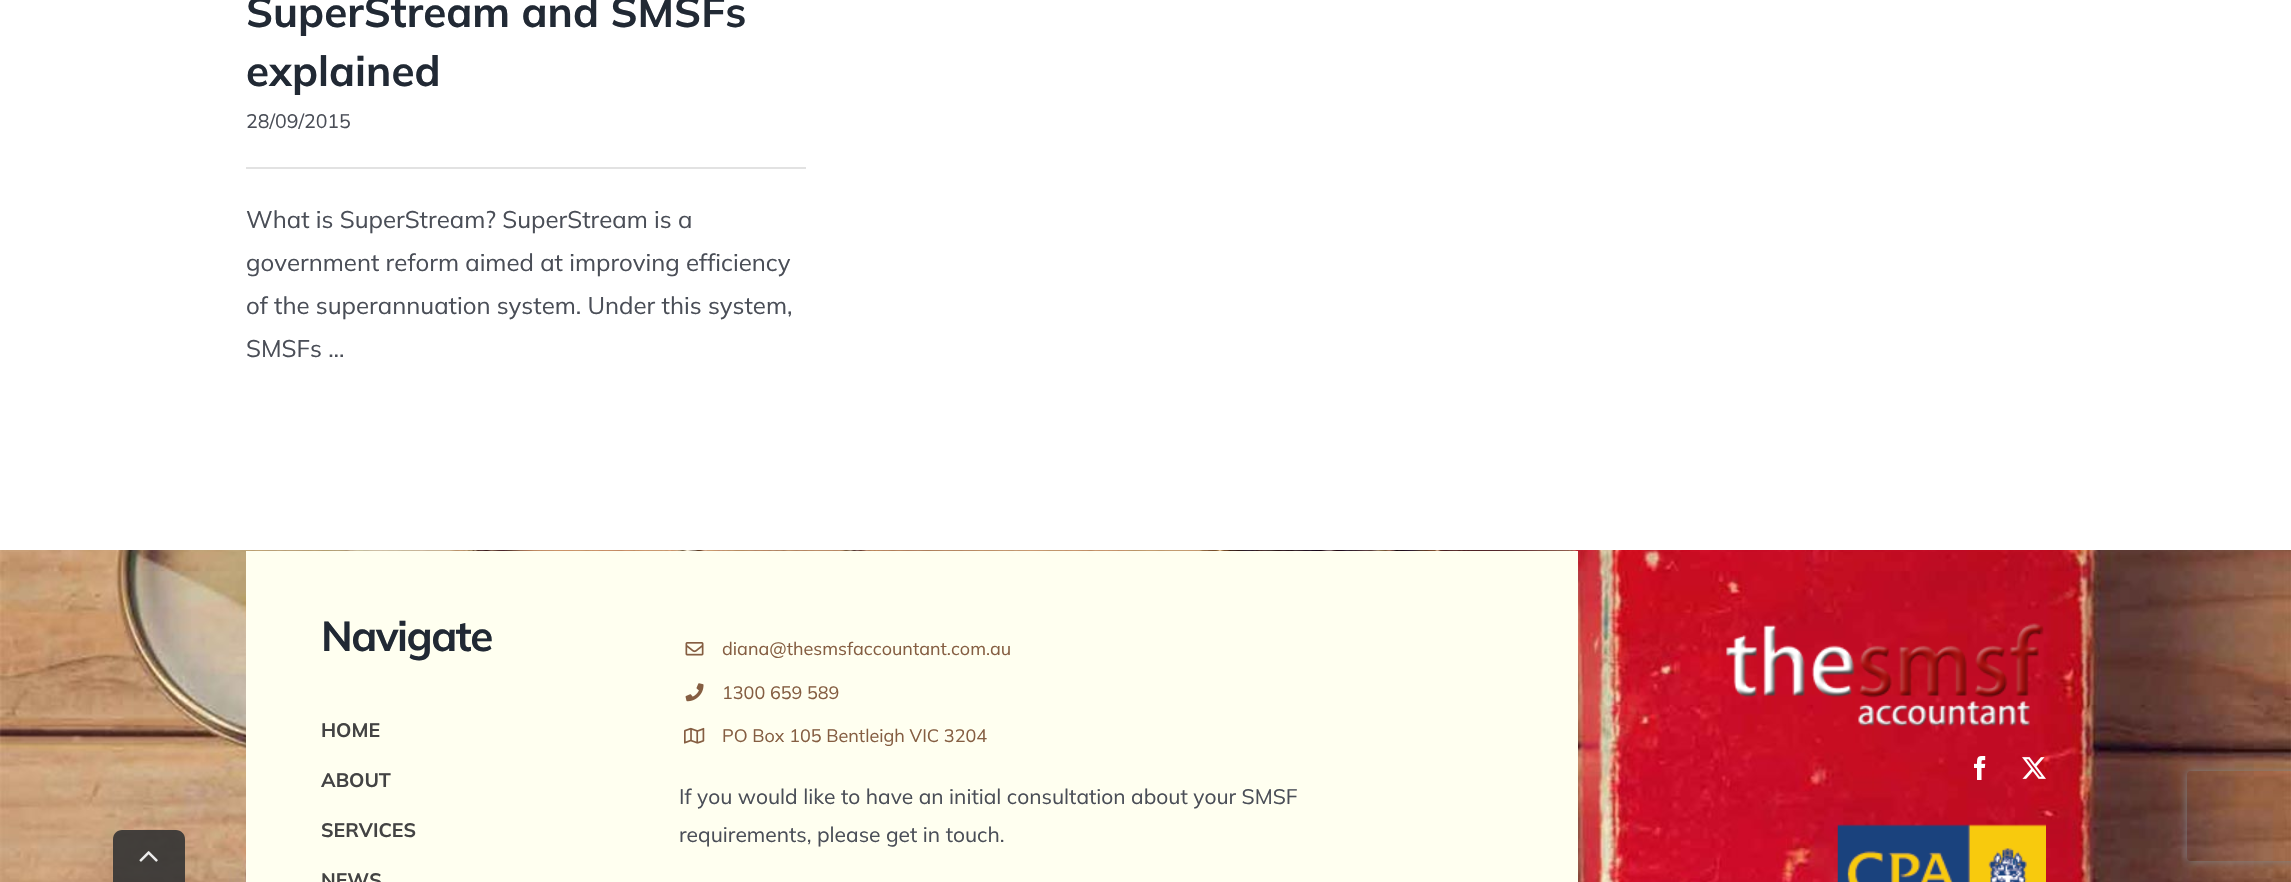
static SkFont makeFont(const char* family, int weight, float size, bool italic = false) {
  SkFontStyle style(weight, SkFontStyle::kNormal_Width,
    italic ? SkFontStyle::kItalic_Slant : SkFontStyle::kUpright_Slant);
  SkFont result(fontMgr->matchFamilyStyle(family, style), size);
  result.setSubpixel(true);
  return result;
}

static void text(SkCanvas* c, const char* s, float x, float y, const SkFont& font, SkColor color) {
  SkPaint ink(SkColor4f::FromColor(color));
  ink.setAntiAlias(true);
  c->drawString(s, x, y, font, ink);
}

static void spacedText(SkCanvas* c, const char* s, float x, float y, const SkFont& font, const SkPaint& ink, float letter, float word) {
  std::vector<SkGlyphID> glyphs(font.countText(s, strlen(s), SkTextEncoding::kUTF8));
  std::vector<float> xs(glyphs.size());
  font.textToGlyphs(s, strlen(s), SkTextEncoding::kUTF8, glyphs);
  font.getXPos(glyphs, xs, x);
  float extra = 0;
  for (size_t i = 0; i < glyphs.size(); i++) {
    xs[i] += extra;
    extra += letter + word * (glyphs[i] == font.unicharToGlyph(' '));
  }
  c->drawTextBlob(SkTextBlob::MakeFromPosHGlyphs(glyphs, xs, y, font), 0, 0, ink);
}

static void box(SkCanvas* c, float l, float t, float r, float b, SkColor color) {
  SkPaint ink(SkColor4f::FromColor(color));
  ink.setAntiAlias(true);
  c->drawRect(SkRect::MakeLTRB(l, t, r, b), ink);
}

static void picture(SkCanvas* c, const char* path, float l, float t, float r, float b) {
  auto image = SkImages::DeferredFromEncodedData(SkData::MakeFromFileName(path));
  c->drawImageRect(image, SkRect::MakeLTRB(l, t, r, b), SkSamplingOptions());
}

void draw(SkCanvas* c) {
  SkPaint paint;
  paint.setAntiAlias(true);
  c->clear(0xffffffff);
  picture(c, "img_02.png", 0, 550, 2291, 882);
  paint.setColor(0xe6333333);
  c->drawPath(SkPathBuilder().moveTo(122, 830).lineTo(176, 830).cubicTo(181, 830, 185, 834, 185, 839).lineTo(185, 882).lineTo(113, 882).lineTo(113, 839).cubicTo(113, 834, 117, 830, 122, 830).close().detach(), paint);
  picture(c, "img_01.png", 139, 851, 158, 862);
  SkFont face1 = makeFont("Mulish", 700, 42);
  text(c, "SuperStream and SMSFs", 246, 27, face1, 0xff212934);
  text(c, "explained", 246, 86, face1, 0xff212934);
  SkFont face2 = makeFont("Mulish", 400, 19.5f);
  text(c, "28/09/2015", 246, 128, face2, 0xff4a4e57);
  box(c, 246, 167, 806, 169, 0xffe2e2e2);
  SkFont face3 = makeFont("Mulish", 400, 24);
  text(c, "What is SuperStream? SuperStream is a", 246, 228, face3, 0xff4a4e57);
  text(c, "government reform aimed at improving efficiency", 246, 271, face3, 0xff4a4e57);
  text(c, "of the superannuation system. Under this system,", 246, 314, face3, 0xff4a4e57);
  text(c, "SMSFs ...", 246, 357, face3, 0xff4a4e57);
  box(c, 246, 551, 1578, 882, 0xfffffff0);
  paint.setColor(0xff212934);
  spacedText(c, "Navigate", 321, 651, face1, paint, -1.5f, 0);
  SkFont face4 = makeFont("Mulish", 700, 19.5f);
  text(c, "HOME", 321, 737, face4, 0xff434343);
  text(c, "ABOUT", 321, 787, face4, 0xff434343);
  text(c, "SERVICES", 321, 837, face4, 0xff434343);
  text(c, "NEWS", 321, 887, face4, 0xff434343);
  picture(c, "img_03.png", 685, 642, 704, 656);
  SkFont face5 = makeFont("Mulish", 400, 18);
  text(c, "diana@thesmsfaccountant.com.au", 722, 655, face5, 0xff855e42);
  picture(c, "img_04.png", 685, 683, 704, 702);
  text(c, "1300 659 589", 722, 699, face5, 0xff855e42);
  picture(c, "img_05.png", 684, 727, 705, 744);
  text(c, "PO Box 105 Bentleigh VIC 3204", 722, 742, face5, 0xff855e42);
  SkFont face6 = makeFont("Mulish", 400, 21);
  text(c, "If you would like to have an initial consultation about your SMSF", 679, 804, face6, 0xff4a4e57);
  text(c, "requirements, please get in touch.", 679, 842, face6, 0xff4a4e57);
  picture(c, "img_06.png", 1726, 623, 2044, 726);
  picture(c, "img_07.png", 1974, 756, 1986, 780);
  picture(c, "img_08.png", 2022, 757, 2046, 779);
  picture(c, "img_09.png", 1837, 824, 2046, 882);
  c->save();
  c->clipPath(SkPathBuilder(SkPathFillType::kEvenOdd).moveTo(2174, 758).lineTo(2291, 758).lineTo(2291, 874).lineTo(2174, 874).close().moveTo(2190, 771).lineTo(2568, 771).cubicTo(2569.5f, 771, 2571, 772.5f, 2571, 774).lineTo(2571, 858).cubicTo(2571, 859.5f, 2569.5f, 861, 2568, 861).lineTo(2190, 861).cubicTo(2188.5f, 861, 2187, 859.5f, 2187, 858).lineTo(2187, 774).cubicTo(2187, 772.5f, 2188.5f, 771, 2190, 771).close().detach(), true);
  paint.setColor(0xff808080);
  paint.setMaskFilter(SkMaskFilter::MakeBlur(kNormal_SkBlurStyle, 4));
  c->drawRoundRect(SkRect::MakeLTRB(2187, 771, 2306, 861), 3, 3, paint);
  paint.setMaskFilter(nullptr);
  c->restore();
}
